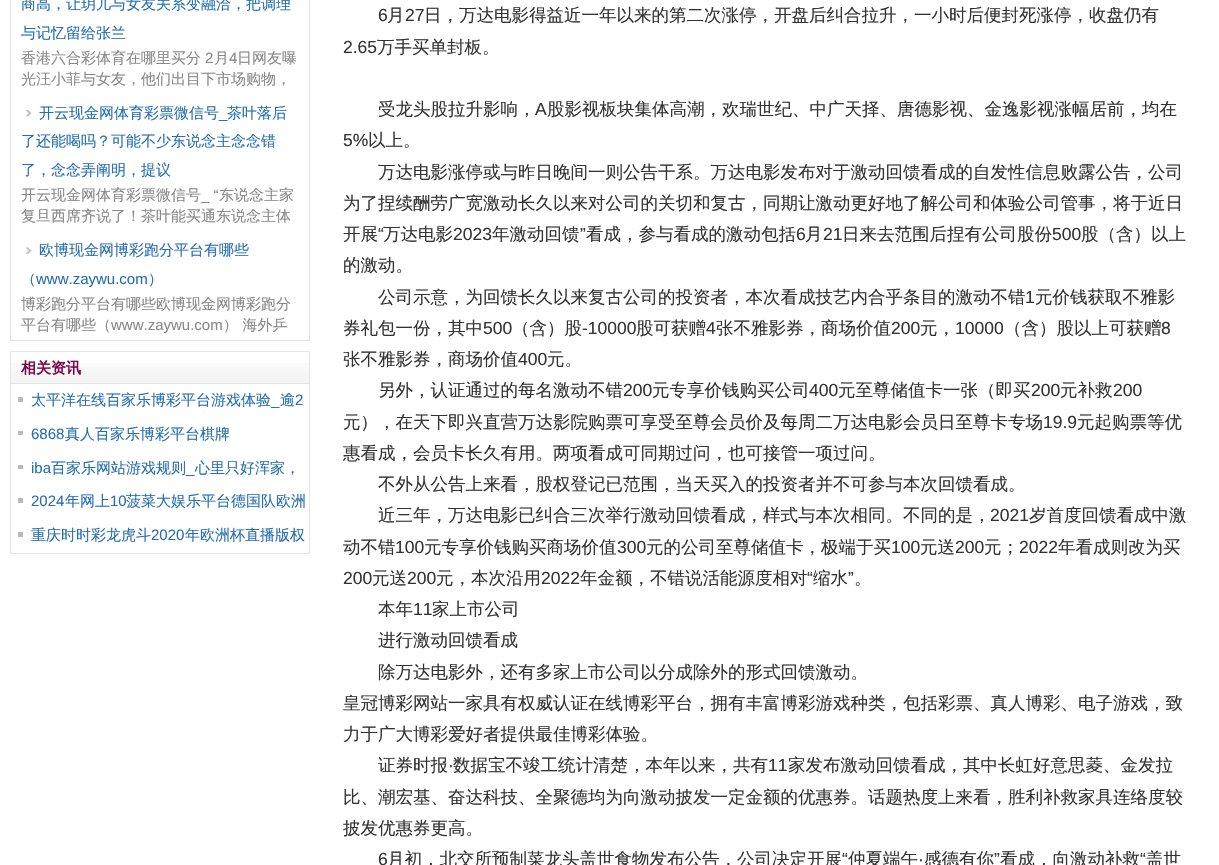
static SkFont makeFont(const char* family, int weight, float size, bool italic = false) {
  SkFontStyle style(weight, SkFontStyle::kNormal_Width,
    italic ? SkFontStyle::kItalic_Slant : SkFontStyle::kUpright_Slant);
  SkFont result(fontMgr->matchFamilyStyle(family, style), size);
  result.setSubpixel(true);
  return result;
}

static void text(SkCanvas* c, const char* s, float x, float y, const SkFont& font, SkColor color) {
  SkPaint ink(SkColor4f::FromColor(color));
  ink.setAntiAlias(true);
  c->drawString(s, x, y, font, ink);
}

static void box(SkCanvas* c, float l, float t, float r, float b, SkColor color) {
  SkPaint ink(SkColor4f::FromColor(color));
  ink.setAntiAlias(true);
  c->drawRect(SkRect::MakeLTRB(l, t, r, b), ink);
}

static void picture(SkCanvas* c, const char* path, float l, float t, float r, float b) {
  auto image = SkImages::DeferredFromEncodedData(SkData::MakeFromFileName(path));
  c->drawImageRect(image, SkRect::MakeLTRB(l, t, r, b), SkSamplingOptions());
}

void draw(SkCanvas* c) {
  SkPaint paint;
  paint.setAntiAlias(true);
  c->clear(0xffffffff);
  box(c, 309, 0, 310, 341, 0xffe4e4e4);
  box(c, 10, 340, 310, 341, 0xffe4e4e4);
  box(c, 10, 0, 11, 341, 0xffe4e4e4);
  SkFont face1 = makeFont("WenQuanYi Zen Hei", 500, 15);
  text(c, "商高，让玥儿与女友关系变融洽，把调理", 21, 9, face1, 0xff256eb1);
  text(c, "与记忆留给张兰", 21, 38, face1, 0xff256eb1);
  text(c, "香港六合彩体育在哪里买分", 21, 63, face1, 0xff888888);
  SkFont face2 = makeFont("Liberation Sans", 400, 15);
  text(c, "2", 205, 63, face2, 0xff888888);
  text(c, "月", 214, 63, face1, 0xff888888);
  text(c, "4", 229, 63, face2, 0xff888888);
  text(c, "日网友曝", 237, 63, face1, 0xff888888);
  text(c, "光汪小菲与女友，他们出目下市场购物，", 21, 84, face1, 0xff888888);
  picture(c, "img_01.png", 26, 110, 32, 117);
  text(c, "开云现金网体育彩票微信号", 39, 118, face1, 0xff256eb1);
  text(c, "茶叶落后", 227, 118, face1, 0xff256eb1);
  text(c, "_", 219, 118, face2, 0xff256eb1);
  text(c, "了还能喝吗？可能不少东说念主念念错", 21, 146, face1, 0xff256eb1);
  text(c, "了，念念弄阐明，提议", 21, 175, face1, 0xff256eb1);
  text(c, "开云现金网体育彩票微信号", 21, 200, face1, 0xff888888);
  text(c, "_ “", 201, 200, face2, 0xff888888);
  text(c, "东说念主家", 219, 200, face1, 0xff888888);
  text(c, "复旦西席齐说了！茶叶能买通东说念主体", 21, 221, face1, 0xff888888);
  picture(c, "img_02.png", 26, 247, 32, 254);
  text(c, "欧博现金网博彩跑分平台有哪些", 39, 255, face1, 0xff256eb1);
  text(c, "（", 21, 284, face1, 0xff256eb1);
  text(c, "www.zaywu.com", 36, 284, face2, 0xff256eb1);
  text(c, "）", 148, 284, face1, 0xff256eb1);
  text(c, "博彩跑分平台有哪些欧博现金网博彩跑分", 21, 309, face1, 0xff888888);
  text(c, "平台有哪些（", 21, 330, face1, 0xff888888);
  text(c, "www.zaywu.com", 111, 330, face2, 0xff888888);
  text(c, "） 海外乒", 223, 330, face1, 0xff888888);
  picture(c, "img_03.png", 11, 363, 309, 383);
  paint.setStyle(SkPaint::kStroke_Style);
  paint.setStrokeWidth(1);
  paint.setColor(0xffe4e4e4);
  c->drawRect(SkRect::MakeLTRB(10.5f, 351.5f, 309.5f, 383.5f), paint);
  SkFont face3 = makeFont("WenQuanYi Zen Hei", 700, 15);
  text(c, "相关资讯", 21, 373, face3, 0xff7b064c);
  box(c, 309, 384, 310, 554, 0xffe4e4e4);
  box(c, 10, 553, 310, 554, 0xffe4e4e4);
  box(c, 10, 384, 11, 554, 0xffe4e4e4);
  box(c, 18, 397, 23, 402, 0xffbab9b9);
  text(c, "太平洋在线百家乐博彩平台游戏体验", 31, 405, face1, 0xff256eb1);
  text(c, "逾", 280, 405, face1, 0xff256eb1);
  text(c, "2", 295, 405, face2, 0xff256eb1);
  text(c, "_", 271, 405, face2, 0xff256eb1);
  box(c, 18, 431, 23, 435, 0xffbab9b9);
  text(c, "6868", 31, 439, face2, 0xff256eb1);
  text(c, "真人百家乐博彩平台棋牌", 65, 439, face1, 0xff256eb1);
  box(c, 18, 465, 23, 469, 0xffbab9b9);
  text(c, "iba", 31, 473, face2, 0xff256eb1);
  text(c, "百家乐网站游戏规则", 51, 473, face1, 0xff256eb1);
  text(c, "_", 186, 473, face2, 0xff256eb1);
  text(c, "心里只好浑家，", 195, 473, face1, 0xff256eb1);
  box(c, 18, 498, 23, 503, 0xffbab9b9);
  text(c, "2024", 31, 506, face2, 0xff256eb1);
  text(c, "年网上", 65, 506, face1, 0xff256eb1);
  text(c, "10", 110, 506, face2, 0xff256eb1);
  text(c, "菠菜大娱乐平台德国队欧洲", 126, 506, face1, 0xff256eb1);
  box(c, 18, 532, 23, 537, 0xffbab9b9);
  text(c, "重庆时时彩龙虎斗", 31, 540, face1, 0xff256eb1);
  text(c, "2020", 151, 540, face2, 0xff256eb1);
  text(c, "年欧洲杯直播版权", 185, 540, face1, 0xff256eb1);
  SkFont face4 = makeFont("Liberation Sans", 400, 17.5f);
  text(c, "6", 378, 21, face4, 0xff333333);
  SkFont face5 = makeFont("WenQuanYi Zen Hei", 500, 17.5f);
  text(c, "月", 387, 21, face5, 0xff333333);
  text(c, "27", 405, 21, face4, 0xff333333);
  text(c, "日，万达电影得益近一年以来的第二次涨停，开盘后纠合拉升，一小时后便封死涨停，收盘仍有", 424, 21, face5, 0xff333333);
  text(c, "2.65", 343, 53, face4, 0xff333333);
  text(c, "万手买单封板。", 377, 53, face5, 0xff333333);
  text(c, "受龙头股拉升影响，", 378, 115, face5, 0xff333333);
  text(c, "A", 535, 115, face4, 0xff333333);
  text(c, "股影视板块集体高潮，欢瑞世纪、中广天择、唐德影视、金逸影视涨幅居前，均在", 547, 115, face5, 0xff333333);
  text(c, "5%", 343, 146, face4, 0xff333333);
  text(c, "以上。", 368, 146, face5, 0xff333333);
  text(c, "万达电影涨停或与昨日晚间一则公告干系。万达电影发布对于激动回馈看成的自发性信息败露公告，公司", 378, 178, face5, 0xff333333);
  text(c, "为了捏续酬劳广宽激动长久以来对公司的关切和复古，同期让激动更好地了解公司和体验公司管事，将于近日", 343, 209, face5, 0xff333333);
  text(c, "开展", 343, 240, face5, 0xff333333);
  text(c, "“", 378, 240, face4, 0xff333333);
  text(c, "万达电影", 383, 240, face5, 0xff333333);
  text(c, "2023", 453, 240, face4, 0xff333333);
  text(c, "年激动回馈", 492, 240, face5, 0xff333333);
  text(c, "”", 580, 240, face4, 0xff333333);
  text(c, "看成，参与看成的激动包括", 586, 240, face5, 0xff333333);
  text(c, "6", 796, 240, face4, 0xff333333);
  text(c, "月", 805, 240, face5, 0xff333333);
  text(c, "21", 823, 240, face4, 0xff333333);
  text(c, "日来去范围后捏有公司股份", 842, 240, face5, 0xff333333);
  text(c, "500", 1052, 240, face4, 0xff333333);
  text(c, "股（含）以上", 1081, 240, face5, 0xff333333);
  text(c, "的激动。", 343, 271, face5, 0xff333333);
  text(c, "公司示意，为回馈长久以来复古公司的投资者，本次看成技艺内合乎条目的激动不错", 378, 303, face5, 0xff333333);
  text(c, "1", 1025, 303, face4, 0xff333333);
  text(c, "元价钱获取不雅影", 1035, 303, face5, 0xff333333);
  text(c, "券礼包一份，其中", 343, 334, face5, 0xff333333);
  text(c, "500", 483, 334, face4, 0xff333333);
  text(c, "（含）股", 512, 334, face5, 0xff333333);
  text(c, "-10000", 582, 334, face4, 0xff333333);
  text(c, "股可获赠", 636, 334, face5, 0xff333333);
  text(c, "4", 706, 334, face4, 0xff333333);
  text(c, "张不雅影券，商场价值", 716, 334, face5, 0xff333333);
  text(c, "200", 891, 334, face4, 0xff333333);
  text(c, "元，", 920, 334, face5, 0xff333333);
  text(c, "10000", 955, 334, face4, 0xff333333);
  text(c, "（含）股以上可获赠", 1004, 334, face5, 0xff333333);
  text(c, "8", 1161, 334, face4, 0xff333333);
  text(c, "张不雅影券，商场价值", 343, 365, face5, 0xff333333);
  text(c, "400", 518, 365, face4, 0xff333333);
  text(c, "元。", 547, 365, face5, 0xff333333);
  text(c, "另外，认证通过的每名激动不错", 378, 396, face5, 0xff333333);
  text(c, "200", 623, 396, face4, 0xff333333);
  text(c, "元专享价钱购买公司", 652, 396, face5, 0xff333333);
  text(c, "400", 809, 396, face4, 0xff333333);
  text(c, "元至尊储值卡一张（即买", 838, 396, face5, 0xff333333);
  text(c, "200", 1031, 396, face4, 0xff333333);
  text(c, "元补救", 1060, 396, face5, 0xff333333);
  text(c, "200", 1113, 396, face4, 0xff333333);
  text(c, "元），在天下即兴直营万达影院购票可享受至尊会员价及每周二万达电影会员日至尊卡专场", 343, 428, face5, 0xff333333);
  text(c, "19.9", 1043, 428, face4, 0xff333333);
  text(c, "元起购票等优", 1077, 428, face5, 0xff333333);
  text(c, "惠看成，会员卡长久有用。两项看成可同期过问，也可接管一项过问。", 343, 459, face5, 0xff333333);
  text(c, "不外从公告上来看，股权登记已范围，当天买入的投资者并不可参与本次回馈看成。", 378, 490, face5, 0xff333333);
  text(c, "近三年，万达电影已纠合三次举行激动回馈看成，样式与本次相同。不同的是，", 378, 521, face5, 0xff333333);
  text(c, "2021", 990, 521, face4, 0xff333333);
  text(c, "岁首度回馈看成中激", 1029, 521, face5, 0xff333333);
  text(c, "动不错", 343, 553, face5, 0xff333333);
  text(c, "100", 395, 553, face4, 0xff333333);
  text(c, "元专享价钱购买商场价值", 424, 553, face5, 0xff333333);
  text(c, "300", 617, 553, face4, 0xff333333);
  text(c, "元的公司至尊储值卡，极端于买", 646, 553, face5, 0xff333333);
  text(c, "100", 891, 553, face4, 0xff333333);
  text(c, "元送", 920, 553, face5, 0xff333333);
  text(c, "200", 955, 553, face4, 0xff333333);
  text(c, "元；", 984, 553, face5, 0xff333333);
  text(c, "2022", 1019, 553, face4, 0xff333333);
  text(c, "年看成则改为买", 1058, 553, face5, 0xff333333);
  text(c, "200", 343, 584, face4, 0xff333333);
  text(c, "元送", 372, 584, face5, 0xff333333);
  text(c, "200", 407, 584, face4, 0xff333333);
  text(c, "元，本次沿用", 436, 584, face5, 0xff333333);
  text(c, "2022", 541, 584, face4, 0xff333333);
  text(c, "年金额，不错说活能源度相对", 580, 584, face5, 0xff333333);
  text(c, "“", 807, 584, face4, 0xff333333);
  text(c, "缩水", 813, 584, face5, 0xff333333);
  text(c, "”", 848, 584, face4, 0xff333333);
  text(c, "。", 854, 584, face5, 0xff333333);
  text(c, "本年", 378, 615, face5, 0xff333333);
  text(c, "11", 413, 615, face4, 0xff333333);
  text(c, "家上市公司", 432, 615, face5, 0xff333333);
  text(c, "进行激动回馈看成", 378, 646, face5, 0xff333333);
  text(c, "除万达电影外，还有多家上市公司以分成除外的形式回馈激动。", 378, 678, face5, 0xff333333);
  text(c, "皇冠博彩网站一家具有权威认证在线博彩平台，拥有丰富博彩游戏种类，包括彩票、真人博彩、电子游戏，致", 343, 709, face5, 0xff333333);
  text(c, "力于广大博彩爱好者提供最佳博彩体验。", 343, 740, face5, 0xff333333);
  text(c, "证券时报", 378, 771, face5, 0xff333333);
  text(c, "·", 448, 771, face4, 0xff333333);
  text(c, "数据宝不竣工统计清楚，本年以来，共有", 453, 771, face5, 0xff333333);
  text(c, "11", 768, 771, face4, 0xff333333);
  text(c, "家发布激动回馈看成，其中长虹好意思菱、金发拉", 788, 771, face5, 0xff333333);
  text(c, "比、潮宏基、奋达科技、全聚德均为向激动披发一定金额的优惠券。话题热度上来看，胜利补救家具连络度较", 343, 803, face5, 0xff333333);
  text(c, "披发优惠券更高。", 343, 834, face5, 0xff333333);
  text(c, "6", 378, 865, face4, 0xff333333);
  text(c, "月初，北交所预制菜龙头盖世食物发布公告，公司决定开展", 387, 865, face5, 0xff333333);
  text(c, "“", 842, 865, face4, 0xff333333);
  text(c, "仲夏端午", 848, 865, face5, 0xff333333);
  text(c, "感德有你", 924, 865, face5, 0xff333333);
  text(c, "”", 994, 865, face4, 0xff333333);
  text(c, "看成，向激动补救", 1000, 865, face5, 0xff333333);
  text(c, "“", 1140, 865, face4, 0xff333333);
  text(c, "盖世", 1146, 865, face5, 0xff333333);
  text(c, "·", 918, 865, face4, 0xff333333);
}
